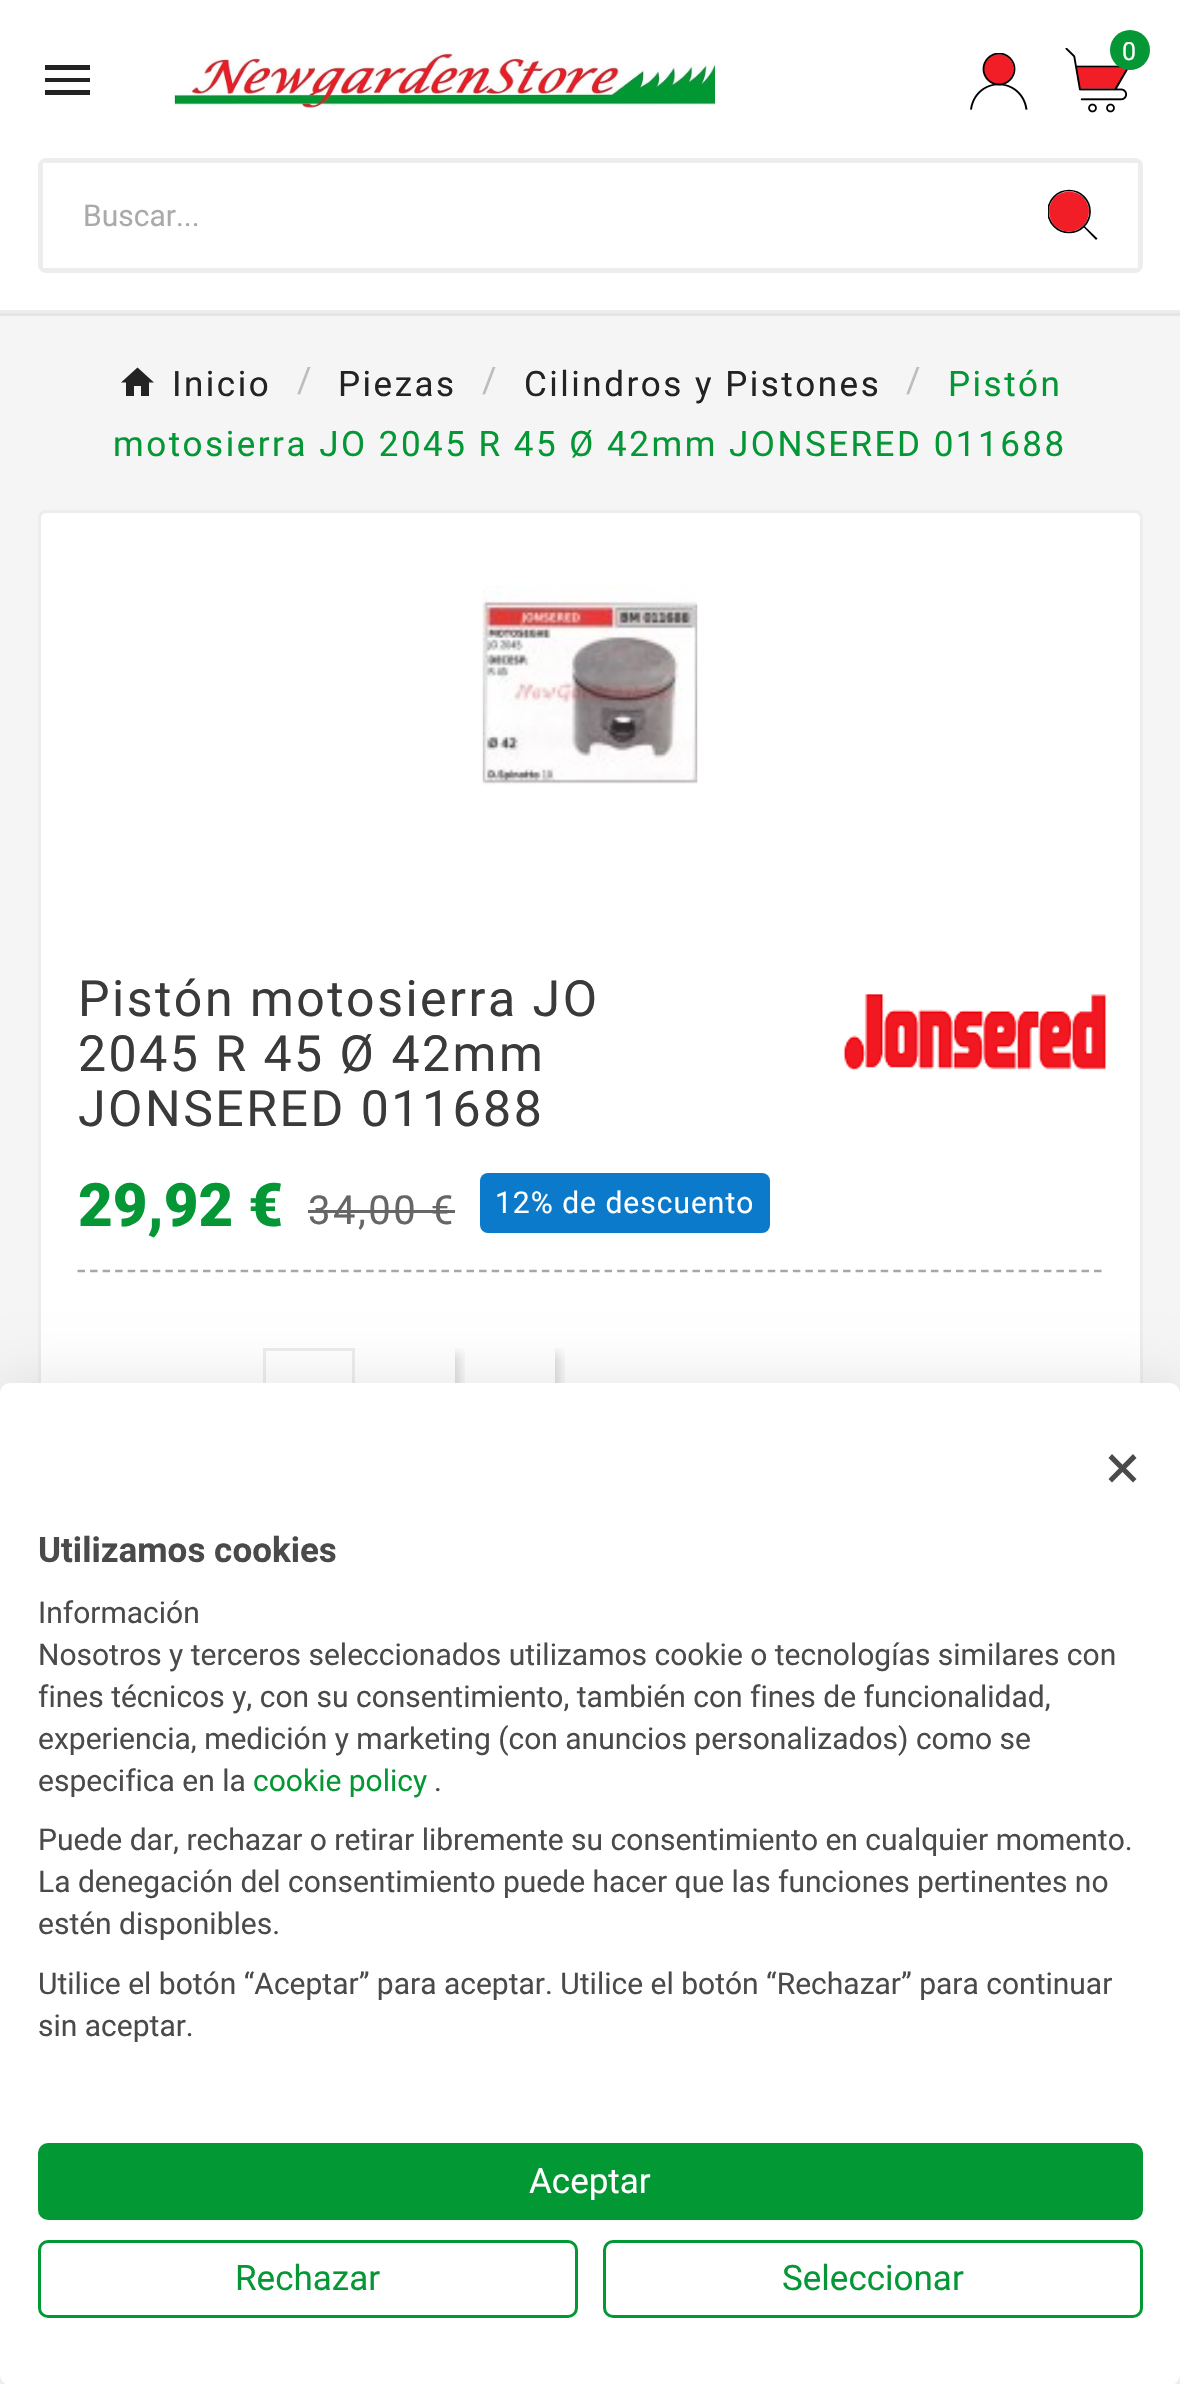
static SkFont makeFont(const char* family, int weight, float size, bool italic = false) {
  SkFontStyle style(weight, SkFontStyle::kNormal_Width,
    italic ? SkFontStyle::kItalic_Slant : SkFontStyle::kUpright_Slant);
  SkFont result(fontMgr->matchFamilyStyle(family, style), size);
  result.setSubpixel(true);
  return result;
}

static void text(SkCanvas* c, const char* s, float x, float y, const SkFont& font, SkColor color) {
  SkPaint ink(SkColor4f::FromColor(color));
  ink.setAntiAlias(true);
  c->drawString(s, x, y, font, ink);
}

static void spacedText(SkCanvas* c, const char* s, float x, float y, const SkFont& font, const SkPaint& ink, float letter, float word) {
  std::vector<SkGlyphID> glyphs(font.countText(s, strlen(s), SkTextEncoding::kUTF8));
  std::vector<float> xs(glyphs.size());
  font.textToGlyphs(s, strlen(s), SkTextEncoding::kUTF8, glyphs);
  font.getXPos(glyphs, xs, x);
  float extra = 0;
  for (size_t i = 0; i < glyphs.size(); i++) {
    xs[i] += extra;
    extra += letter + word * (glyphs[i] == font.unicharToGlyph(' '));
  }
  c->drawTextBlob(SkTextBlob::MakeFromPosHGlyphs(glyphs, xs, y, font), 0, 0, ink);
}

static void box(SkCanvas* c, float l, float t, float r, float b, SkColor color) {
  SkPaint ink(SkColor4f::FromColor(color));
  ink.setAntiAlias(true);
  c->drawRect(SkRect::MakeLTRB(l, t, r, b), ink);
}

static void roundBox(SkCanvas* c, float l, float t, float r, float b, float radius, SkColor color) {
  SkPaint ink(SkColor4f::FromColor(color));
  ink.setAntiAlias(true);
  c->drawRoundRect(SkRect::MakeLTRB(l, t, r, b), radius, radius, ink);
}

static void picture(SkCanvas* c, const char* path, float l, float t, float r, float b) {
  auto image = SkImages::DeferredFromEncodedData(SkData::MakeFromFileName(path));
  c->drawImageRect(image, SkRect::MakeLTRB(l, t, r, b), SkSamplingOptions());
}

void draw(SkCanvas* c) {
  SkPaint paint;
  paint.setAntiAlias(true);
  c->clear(0xfff5f5f5);
  box(c, 0, 0, 1180, 310, 0xffffffff);
  box(c, 0, 313, 1180, 316, 0xffe5e5e5);
  box(c, 0, 310, 1180, 313, 0xffededed);
  paint.setColor(0xff222222);
  c->drawPath(SkPathBuilder().moveTo(45, 65).lineTo(90, 65).lineTo(90, 70).lineTo(45, 70).close().moveTo(45, 82).lineTo(45, 78).lineTo(90, 78).lineTo(90, 82).close().moveTo(45, 95).lineTo(45, 90).lineTo(90, 90).lineTo(90, 95).close().detach(), paint);
  picture(c, "img_01.png", 173, 52, 715, 108);
  picture(c, "img_02.png", 970, 53, 1028, 110);
  picture(c, "img_03.png", 1065, 48, 1129, 113);
  paint.setColor(0xff059735);
  c->drawCircle(1130, 50, 20, paint);
  SkFont face1 = makeFont("Roboto", 400, 25);
  paint.setColor(0xffffffff);
  spacedText(c, "0", 1122, 60, face1, paint, 2.5f, 0);
  paint.setStyle(SkPaint::kStroke_Style);
  paint.setStrokeWidth(5);
  paint.setColor(0xffededed);
  c->drawRoundRect(SkRect::MakeLTRB(40.5f, 160.5f, 1140.5f, 270.5f), 5.5f, 5.5f, paint);
  box(c, 43, 163, 45, 268, 0xffffffff);
  SkFont face2 = makeFont("Roboto", 400, 30);
  text(c, "Buscar...", 83, 226, face2, 0xffaaaaaa);
  box(c, 1136, 163, 1138, 268, 0xffffffff);
  paint.setStyle(SkPaint::kFill_Style);
  paint.setColor(0xff000000);
  c->drawPath(SkPathBuilder().moveTo(1096, 240).lineTo(1083.5f, 227).lineTo(1084.5f, 226).lineTo(1097.5f, 238.5f).close().detach(), paint);
  paint.setColor(0xfff11e27);
  c->drawCircle(1069, 211.5f, 20, paint);
  c->save();
  c->clipRect(SkRect::MakeLTRB(1048, 188, 1098, 243));
  paint.setStyle(SkPaint::kStroke_Style);
  paint.setStrokeWidth(1.7f);
  paint.setColor(0xff000000);
  c->drawCircle(1069, 211.5f, 21, paint);
  c->restore();
  SkFont face3 = makeFont("Roboto", 400, 35);
  paint.setStyle(SkPaint::kFill_Style);
  paint.setColor(0xff232323);
  spacedText(c, "Inicio", 172, 396, face3, paint, 2.5f, 0);
  c->drawPath(SkPathBuilder().moveTo(134, 396).lineTo(126, 396).lineTo(126, 382.5f).lineTo(121, 382.5f).lineTo(137.5f, 367.5f).lineTo(154, 382.5f).lineTo(149, 382.5f).lineTo(149, 396).lineTo(141, 396).lineTo(141, 386).lineTo(134, 386).close().detach(), paint);
  paint.setColor(0xffbdbdbd);
  spacedText(c, "/", 297, 392, face3, paint, 2.5f, 0);
  paint.setColor(0xff232323);
  spacedText(c, "Piezas", 338, 396, face3, paint, 2.5f, 0);
  paint.setColor(0xffbdbdbd);
  spacedText(c, "/", 482, 392, face3, paint, 2.5f, 0);
  paint.setColor(0xff232323);
  spacedText(c, "Cilindros y Pistones", 524, 396, face3, paint, 2.5f, 0);
  paint.setColor(0xffbdbdbd);
  spacedText(c, "/", 906, 392, face3, paint, 2.5f, 0);
  paint.setColor(0xff059735);
  spacedText(c, "Pistón", 948, 396, face3, paint, 2.5f, 0);
  spacedText(c, "motosierra JO 2045 R 45 Ø 42mm JONSERED 011688", 113, 456, face3, paint, 2.5f, 0);
  roundBox(c, 38, 510, 1143, 1970, 8, 0xffffffff);
  paint.setStyle(SkPaint::kStroke_Style);
  paint.setStrokeWidth(3);
  paint.setColor(0x12000000);
  c->drawRoundRect(SkRect::MakeLTRB(39.5f, 511.5f, 1141.5f, 1968.5f), 6.5f, 6.5f, paint);
  picture(c, "img_04.png", 482, 585, 698, 785);
  SkFont face4 = makeFont("Roboto", 400, 50);
  paint.setStyle(SkPaint::kFill_Style);
  paint.setColor(0xff3a3a3a);
  spacedText(c, "Pistón motosierra JO", 78, 1016, face4, paint, 2.5f, 0);
  spacedText(c, "2045 R 45 Ø 42mm", 78, 1071, face4, paint, 2.5f, 0);
  spacedText(c, "JONSERED 011688", 78, 1126, face4, paint, 2.5f, 0);
  picture(c, "img_05.png", 828, 994, 1107, 1096);
  SkFont face5 = makeFont("Roboto", 900, 60);
  text(c, "29,92 €", 78, 1226, face5, 0xff059735);
  SkFont face6 = makeFont("Roboto", 400, 40);
  paint.setColor(0xff666666);
  spacedText(c, "34,00 €", 308, 1224, face6, paint, 2.5f, 0);
  box(c, 308, 1210, 455, 1213, 0xff666666);
  roundBox(c, 480, 1173, 770, 1233, 8, 0xff0b7acb);
  paint.setColor(0xffffffff);
  spacedText(c, "12% de descuento", 495, 1213, face2, paint, 1, 0);
  paint.setStyle(SkPaint::kStroke_Style);
  paint.setStrokeWidth(2.5f);
  paint.setColor(0xffa7a7a7);
  paint.setPathEffect(SkDashPathEffect::Make({{7.5f, 5.05f}}, 0));
  c->drawPath(SkPathBuilder().moveTo(77.5f, 1271).lineTo(1102.5f, 1271).detach(), paint);
  paint.setPathEffect(nullptr);
  paint.setStrokeWidth(3);
  paint.setColor(0xffededed);
  c->drawRect(SkRect::MakeLTRB(264.5f, 1349.5f, 353.5f, 1438.5f), paint);
  c->save();
  c->clipRect(SkRect::MakeLTRB(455, 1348, 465, 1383));
  paint.setStyle(SkPaint::kFill_Style);
  paint.setColor(0x24000000);
  paint.setMaskFilter(SkMaskFilter::MakeBlur(kNormal_SkBlurStyle, 5));
  c->drawRect(SkRect::MakeLTRB(373, 1353, 460, 1440), paint);
  paint.setMaskFilter(nullptr);
  c->restore();
  c->save();
  c->clipRect(SkRect::MakeLTRB(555, 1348, 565, 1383));
  paint.setMaskFilter(SkMaskFilter::MakeBlur(kNormal_SkBlurStyle, 5));
  c->drawRect(SkRect::MakeLTRB(473, 1353, 560, 1440), paint);
  paint.setMaskFilter(nullptr);
  c->restore();
  paint.setColor(0x1a000000);
  paint.setMaskFilter(SkMaskFilter::MakeBlur(kNormal_SkBlurStyle, 30));
  c->drawRoundRect(SkRect::MakeLTRB(0, 1383, 1180, 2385), 10, 10, paint);
  paint.setMaskFilter(nullptr);
  roundBox(c, 0, 1383, 1180, 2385, 10, 0xffffffff);
  paint.setColor(0xff4a4a4a);
  c->drawPath(SkPathBuilder().moveTo(1133, 1454).lineTo(1136.5f, 1458).lineTo(1112, 1482.5f).lineTo(1108.5f, 1479).close().detach(), paint);
  c->drawPath(SkPathBuilder().moveTo(1108.5f, 1458).lineTo(1112, 1454).lineTo(1136.5f, 1479).lineTo(1133, 1482.5f).close().detach(), paint);
  SkFont face7 = makeFont("Roboto", 700, 35);
  text(c, "Utilizamos cookies", 38, 1562, face7, 0xff4a4a4a);
  text(c, "Información", 38, 1623, face2, 0xff4a4a4a);
  text(c, "Nosotros y terceros seleccionados utilizamos cookie o tecnologías similares con", 38, 1665, face2, 0xff4a4a4a);
  text(c, "fines técnicos y, con su consentimiento, también con fines de funcionalidad,", 38, 1707, face2, 0xff4a4a4a);
  text(c, "experiencia, medición y marketing (con anuncios personalizados) como se", 38, 1749, face2, 0xff4a4a4a);
  text(c, "especifica en la", 38, 1791, face2, 0xff4a4a4a);
  text(c, "cookie policy", 253, 1791, face2, 0xff059735);
  text(c, ".", 434, 1791, face2, 0xff4a4a4a);
  text(c, "Puede dar, rechazar o retirar libremente su consentimiento en cualquier momento.", 38, 1850, face2, 0xff4a4a4a);
  text(c, "La denegación del consentimiento puede hacer que las funciones pertinentes no", 38, 1892, face2, 0xff4a4a4a);
  text(c, "estén disponibles.", 38, 1934, face2, 0xff4a4a4a);
  text(c, "Utilice el botón “Aceptar” para aceptar. Utilice el botón “Rechazar” para continuar", 38, 1994, face2, 0xff4a4a4a);
  text(c, "sin aceptar.", 38, 2036, face2, 0xff4a4a4a);
  paint.setColor(0xff029834);
  c->drawRoundRect(SkRect::MakeLTRB(39.5f, 2144.5f, 1141.5f, 2218.5f), 8.5f, 8.5f, paint);
  paint.setStyle(SkPaint::kStroke_Style);
  c->drawRoundRect(SkRect::MakeLTRB(39.5f, 2144.5f, 1141.5f, 2218.5f), 8.5f, 8.5f, paint);
  text(c, "Aceptar", 529, 2193, face3, 0xffffffff);
  c->drawRoundRect(SkRect::MakeLTRB(39.5f, 2241.5f, 576.5f, 2316.5f), 8.5f, 8.5f, paint);
  text(c, "Rechazar", 235, 2290, face3, 0xff059735);
  c->drawRoundRect(SkRect::MakeLTRB(604.5f, 2241.5f, 1141.5f, 2316.5f), 8.5f, 8.5f, paint);
  text(c, "Seleccionar", 782, 2290, face3, 0xff059735);
}
